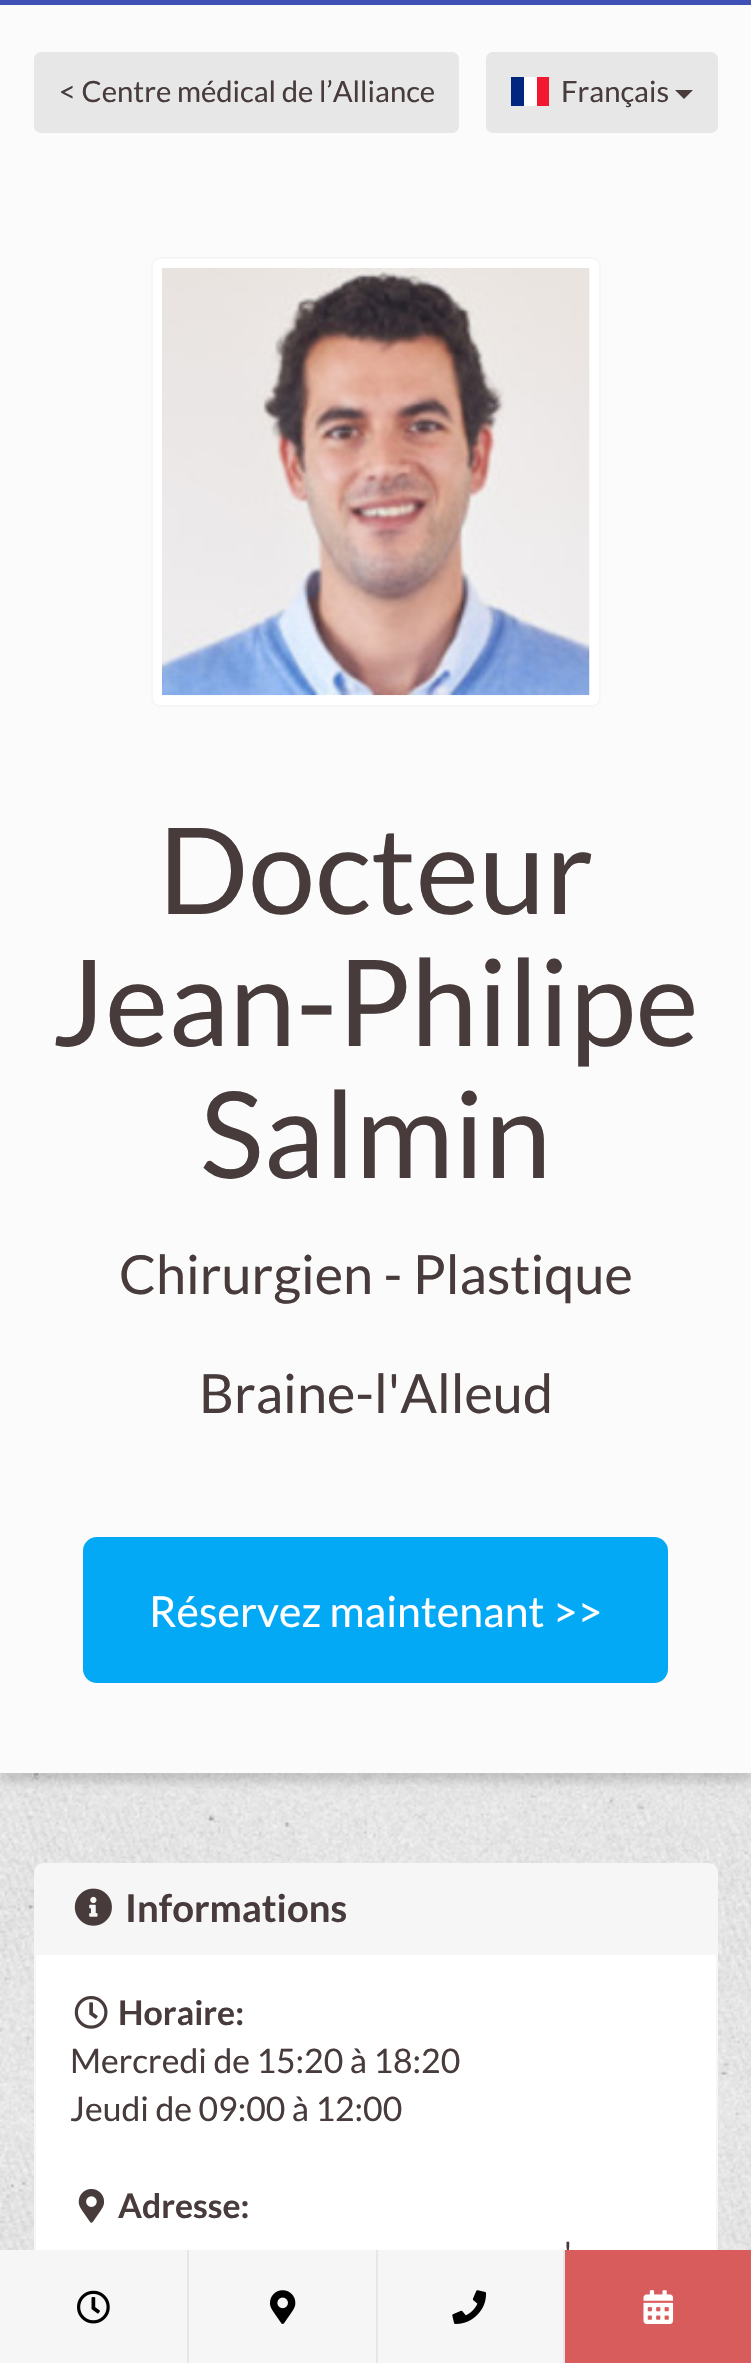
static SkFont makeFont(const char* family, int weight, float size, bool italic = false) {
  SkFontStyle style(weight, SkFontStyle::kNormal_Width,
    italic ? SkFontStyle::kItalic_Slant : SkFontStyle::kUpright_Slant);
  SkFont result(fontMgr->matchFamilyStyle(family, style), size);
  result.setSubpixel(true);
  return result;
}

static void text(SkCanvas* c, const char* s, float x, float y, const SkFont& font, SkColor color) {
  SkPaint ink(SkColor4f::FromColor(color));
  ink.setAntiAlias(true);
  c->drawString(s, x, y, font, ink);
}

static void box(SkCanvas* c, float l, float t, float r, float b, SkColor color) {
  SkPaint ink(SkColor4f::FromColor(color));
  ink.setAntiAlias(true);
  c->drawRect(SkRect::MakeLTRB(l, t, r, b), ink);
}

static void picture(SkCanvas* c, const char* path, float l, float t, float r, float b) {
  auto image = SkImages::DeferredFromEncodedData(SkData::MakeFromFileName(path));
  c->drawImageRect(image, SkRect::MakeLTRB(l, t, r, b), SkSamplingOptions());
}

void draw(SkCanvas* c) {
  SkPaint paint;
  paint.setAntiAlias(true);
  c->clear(0xffffffff);
  picture(c, "img_01.png", 0, 1773, 751, 2250);
  paint.setColor(0x26000000);
  paint.setMaskFilter(SkMaskFilter::MakeBlur(kNormal_SkBlurStyle, 4.5f));
  c->drawRect(SkRect::MakeLTRB(0, 9, 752, 1782), paint);
  paint.setMaskFilter(nullptr);
  box(c, 0, 5, 751, 1773, 0xfffbfbfb);
  box(c, 0, 0, 751, 5, 0xff3f51b5);
  paint.setColor(0xffe7e7e7);
  c->drawRoundRect(SkRect::MakeLTRB(36.5f, 54.5f, 456.5f, 130.5f), 4.5f, 4.5f, paint);
  paint.setStyle(SkPaint::kStroke_Style);
  paint.setStrokeWidth(5);
  c->drawRoundRect(SkRect::MakeLTRB(36.5f, 54.5f, 456.5f, 130.5f), 4.5f, 4.5f, paint);
  SkFont face1 = makeFont("Lato", 400, 29.25f);
  text(c, "< Centre médical de l’Alliance", 59, 102, face1, 0xff483b3b);
  paint.setStyle(SkPaint::kFill_Style);
  c->drawRoundRect(SkRect::MakeLTRB(488.5f, 54.5f, 715.5f, 130.5f), 4.5f, 4.5f, paint);
  paint.setStyle(SkPaint::kStroke_Style);
  c->drawRoundRect(SkRect::MakeLTRB(488.5f, 54.5f, 715.5f, 130.5f), 4.5f, 4.5f, paint);
  box(c, 524, 77, 537, 106, 0xffffffff);
  box(c, 511, 77, 524, 106, 0xff00267f);
  box(c, 537, 77, 549, 106, 0xfff31830);
  text(c, "Français", 561, 102, face1, 0xff483b3b);
  paint.setStyle(SkPaint::kFill_Style);
  paint.setColor(0xff483b3b);
  c->drawPath(SkPathBuilder().moveTo(675, 90).lineTo(693, 90).lineTo(684, 99).close().detach(), paint);
  paint.setColor(0xffffffff);
  c->drawRoundRect(SkRect::MakeLTRB(152, 258, 600, 706), 8, 8, paint);
  paint.setStyle(SkPaint::kStroke_Style);
  paint.setStrokeWidth(2);
  paint.setColor(0xfff6f6f6);
  c->drawRoundRect(SkRect::MakeLTRB(152, 258, 600, 706), 8, 8, paint);
  picture(c, "img_02.png", 162, 268, 590, 696);
  SkFont face2 = makeFont("Lato", 400, 120);
  text(c, "Docteur", 158, 914, face2, 0xff483b3b);
  text(c, "Jean-Philipe", 52, 1046, face2, 0xff483b3b);
  text(c, "Salmin", 200, 1178, face2, 0xff483b3b);
  SkFont face3 = makeFont("Lato", 400, 54);
  text(c, "Chirurgien - Plastique", 119, 1294, face3, 0xff483b3b);
  text(c, "Braine-l'Alleud", 199, 1413, face3, 0xff483b3b);
  paint.setStyle(SkPaint::kFill_Style);
  paint.setColor(0xff03a9f4);
  c->drawRoundRect(SkRect::MakeLTRB(85.5f, 1539.5f, 665.5f, 1680.5f), 11.5f, 11.5f, paint);
  paint.setStyle(SkPaint::kStroke_Style);
  paint.setStrokeWidth(5);
  c->drawRoundRect(SkRect::MakeLTRB(85.5f, 1539.5f, 665.5f, 1680.5f), 11.5f, 11.5f, paint);
  SkFont face4 = makeFont("Lato", 400, 42.75f);
  text(c, "Réservez maintenant >>", 149, 1627, face4, 0xffffffff);
  paint.setStyle(SkPaint::kFill_Style);
  paint.setColor(0xffffffff);
  c->drawRoundRect(SkRect::MakeLTRB(35, 1864, 717, 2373), 8, 8, paint);
  paint.setStyle(SkPaint::kStroke_Style);
  paint.setStrokeWidth(2);
  paint.setColor(0xfff6f6f6);
  c->drawRoundRect(SkRect::MakeLTRB(35, 1864, 717, 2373), 8, 8, paint);
  paint.setStyle(SkPaint::kFill_Style);
  c->drawPath(SkPathBuilder().moveTo(43, 1865).lineTo(709, 1865).cubicTo(713, 1865, 716, 1868, 716, 1872).lineTo(716, 1955).lineTo(36, 1955).lineTo(36, 1872).cubicTo(36, 1868, 39, 1865, 43, 1865).close().detach(), paint);
  picture(c, "img_03.png", 74, 1888, 112, 1926);
  SkFont face5 = makeFont("Lato", 700, 38.25f);
  text(c, "Informations", 125, 1922, face5, 0xff483b3b);
  picture(c, "img_04.png", 74, 1996, 108, 2029);
  SkFont face6 = makeFont("Lato", 700, 33.75f);
  text(c, "Horaire:", 118, 2025, face6, 0xff483b3b);
  SkFont face7 = makeFont("Lato", 400, 33.75f);
  text(c, "Mercredi de 15:20 à 18:20", 70, 2073, face7, 0xff483b3b);
  text(c, "Jeudi de 09:00 à 12:00", 70, 2121, face7, 0xff483b3b);
  picture(c, "img_05.png", 78, 2189, 105, 2223);
  text(c, "Adresse:", 118, 2218, face6, 0xff483b3b);
  text(c, "'", 564, 2266, face7, 0xff483b3b);
  box(c, 0, 2250, 187, 2363, 0xfff6f6f6);
  box(c, 187, 2250, 189, 2363, 0xffe9e6e6);
  picture(c, "img_06.png", 77, 2290, 110, 2324);
  box(c, 189, 2250, 376, 2363, 0xfff6f6f6);
  box(c, 376, 2250, 378, 2363, 0xffe9e6e6);
  picture(c, "img_07.png", 270, 2290, 296, 2324);
  box(c, 378, 2250, 563, 2363, 0xfff6f6f6);
  box(c, 563, 2250, 565, 2363, 0xffe9e6e6);
  picture(c, "img_08.png", 452, 2290, 487, 2324);
  box(c, 565, 2250, 751, 2363, 0xffd95c5c);
  picture(c, "img_09.png", 643, 2290, 674, 2324);
}
